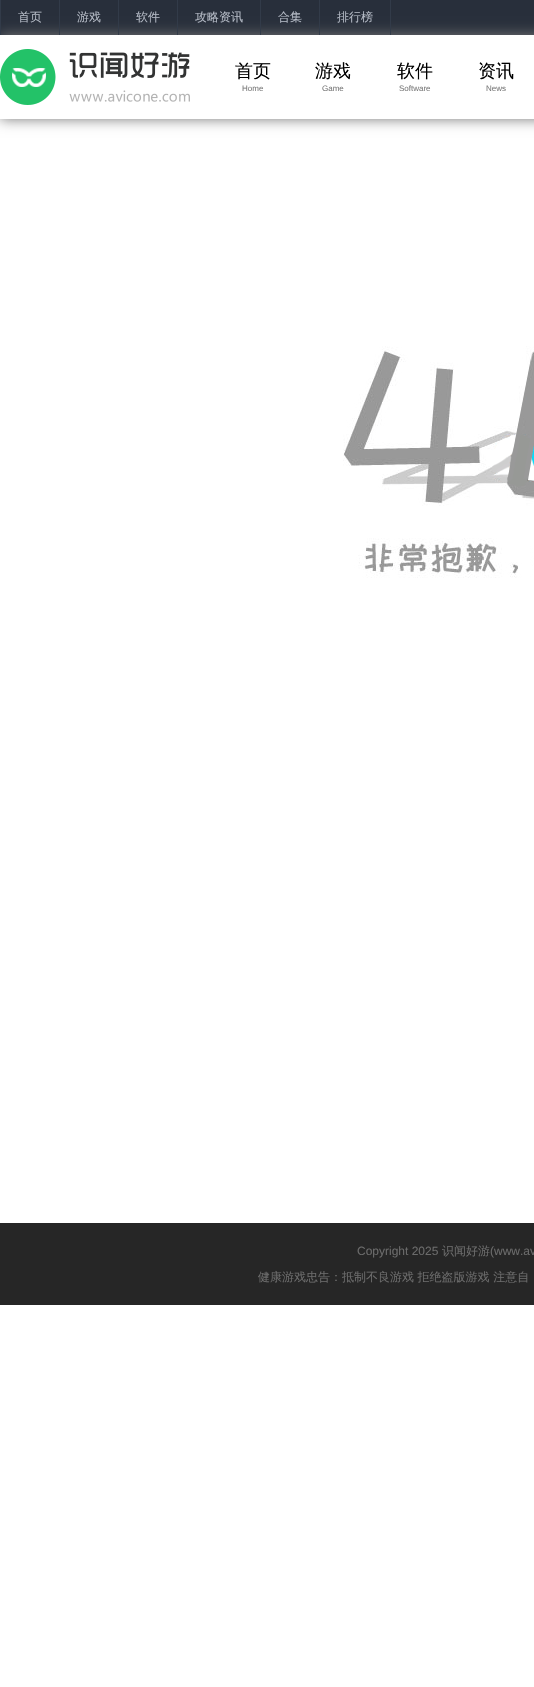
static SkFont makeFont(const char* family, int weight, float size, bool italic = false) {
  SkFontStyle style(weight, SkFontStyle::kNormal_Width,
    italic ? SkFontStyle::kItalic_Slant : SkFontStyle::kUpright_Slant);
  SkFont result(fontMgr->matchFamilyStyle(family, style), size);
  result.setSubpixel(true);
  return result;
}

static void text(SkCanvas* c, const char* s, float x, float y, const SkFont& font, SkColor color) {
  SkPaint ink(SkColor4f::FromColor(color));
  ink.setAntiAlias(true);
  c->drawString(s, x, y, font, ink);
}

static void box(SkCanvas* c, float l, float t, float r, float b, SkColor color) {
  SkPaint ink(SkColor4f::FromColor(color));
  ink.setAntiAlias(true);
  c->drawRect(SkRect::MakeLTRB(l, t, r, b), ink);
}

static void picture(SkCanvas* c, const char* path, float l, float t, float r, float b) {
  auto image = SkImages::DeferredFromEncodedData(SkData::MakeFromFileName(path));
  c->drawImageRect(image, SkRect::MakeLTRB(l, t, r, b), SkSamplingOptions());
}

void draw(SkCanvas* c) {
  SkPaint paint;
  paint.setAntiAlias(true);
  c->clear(0xffffffff);
  box(c, 1, 0, 534, 35, 0xff282f3b);
  c->save();
  c->clipPath(SkPathBuilder(SkPathFillType::kEvenOdd).moveTo(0, 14).lineTo(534, 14).lineTo(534, 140).lineTo(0, 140).close().moveTo(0, 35).lineTo(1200, 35).lineTo(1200, 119).lineTo(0, 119).close().detach(), true);
  paint.setColor(0xff777777);
  paint.setMaskFilter(SkMaskFilter::MakeBlur(kNormal_SkBlurStyle, 6.5f));
  c->drawRect(SkRect::MakeLTRB(0, 35, 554, 119), paint);
  paint.setMaskFilter(nullptr);
  c->restore();
  box(c, 0, 0, 1, 35, 0xff323b49);
  box(c, 59, 0, 60, 35, 0xff323b49);
  SkFont face1 = makeFont("WenQuanYi Zen Hei", 500, 12);
  text(c, "首页", 18, 21, face1, 0xffb4bac5);
  box(c, 118, 0, 119, 35, 0xff323b49);
  text(c, "游戏", 77, 21, face1, 0xffb4bac5);
  box(c, 177, 0, 178, 35, 0xff323b49);
  text(c, "软件", 136, 21, face1, 0xffb4bac5);
  box(c, 260, 0, 261, 35, 0xff323b49);
  text(c, "攻略资讯", 195, 21, face1, 0xffb4bac5);
  box(c, 319, 0, 320, 35, 0xff323b49);
  text(c, "合集", 278, 21, face1, 0xffb4bac5);
  box(c, 390, 0, 391, 35, 0xff323b49);
  text(c, "排行榜", 337, 21, face1, 0xffb4bac5);
  picture(c, "img_01.png", 0, 49, 190, 105);
  SkFont face2 = makeFont("WenQuanYi Zen Hei", 500, 18);
  text(c, "首页", 235, 77, face2, 0xff000000);
  SkFont face3 = makeFont("Liberation Sans", 400, 8);
  text(c, "Home", 242, 91, face3, 0xff7a7a7a);
  text(c, "游戏", 315, 77, face2, 0xff000000);
  text(c, "Game", 322, 91, face3, 0xff7a7a7a);
  text(c, "软件", 397, 77, face2, 0xff000000);
  text(c, "Software", 399, 91, face3, 0xff7a7a7a);
  text(c, "资讯", 478, 77, face2, 0xff000000);
  text(c, "News", 486, 91, face3, 0xff7a7a7a);
  picture(c, "img_02.png", 343, 346, 534, 578);
  box(c, 0, 1223, 534, 1305, 0xff262626);
  SkFont face4 = makeFont("Liberation Sans", 400, 12);
  text(c, "Copyright 2025", 357, 1255, face4, 0xff6b6b6b);
  text(c, "识闻好游", 442, 1255, face1, 0xff6b6b6b);
  text(c, "(www.av", 490, 1255, face4, 0xff6b6b6b);
  text(c, "健康游戏忠告：抵制不良游戏 拒绝盗版游戏 注意自", 258, 1281, face1, 0xff6b6b6b);
}
